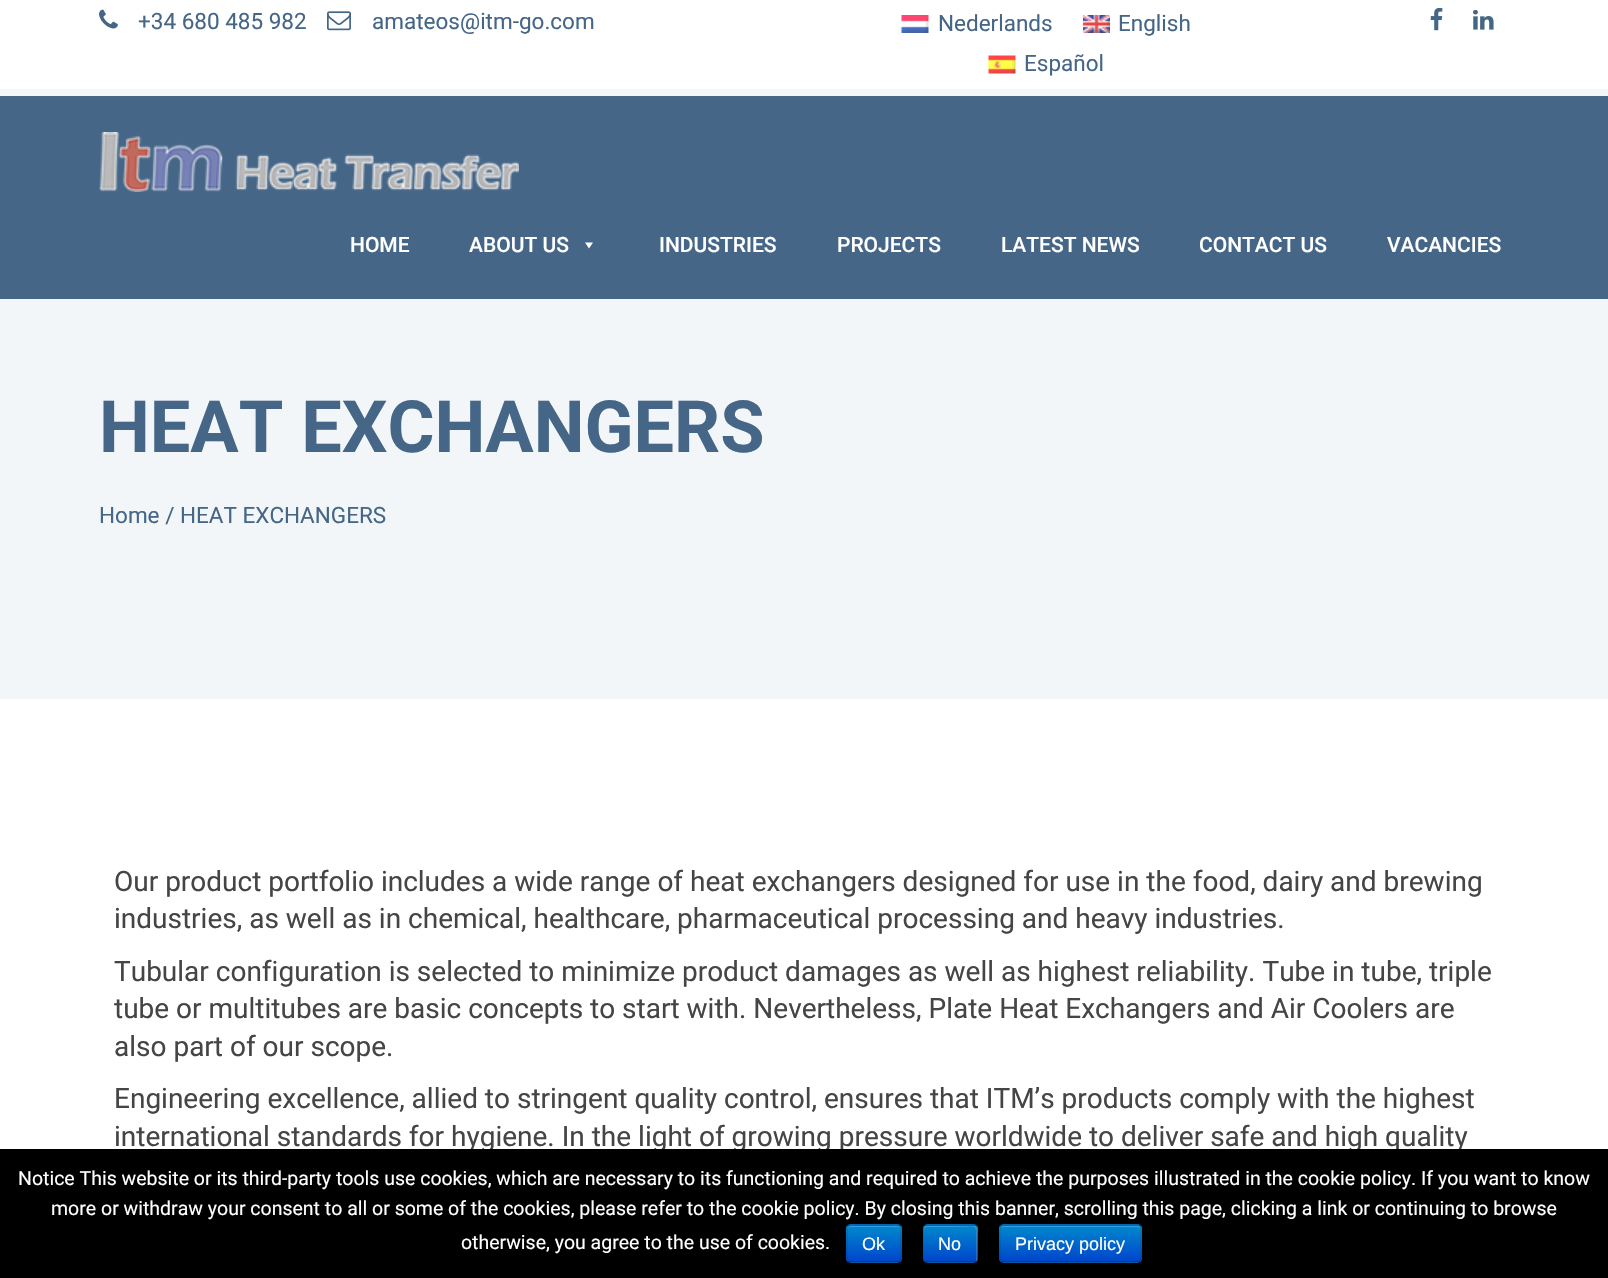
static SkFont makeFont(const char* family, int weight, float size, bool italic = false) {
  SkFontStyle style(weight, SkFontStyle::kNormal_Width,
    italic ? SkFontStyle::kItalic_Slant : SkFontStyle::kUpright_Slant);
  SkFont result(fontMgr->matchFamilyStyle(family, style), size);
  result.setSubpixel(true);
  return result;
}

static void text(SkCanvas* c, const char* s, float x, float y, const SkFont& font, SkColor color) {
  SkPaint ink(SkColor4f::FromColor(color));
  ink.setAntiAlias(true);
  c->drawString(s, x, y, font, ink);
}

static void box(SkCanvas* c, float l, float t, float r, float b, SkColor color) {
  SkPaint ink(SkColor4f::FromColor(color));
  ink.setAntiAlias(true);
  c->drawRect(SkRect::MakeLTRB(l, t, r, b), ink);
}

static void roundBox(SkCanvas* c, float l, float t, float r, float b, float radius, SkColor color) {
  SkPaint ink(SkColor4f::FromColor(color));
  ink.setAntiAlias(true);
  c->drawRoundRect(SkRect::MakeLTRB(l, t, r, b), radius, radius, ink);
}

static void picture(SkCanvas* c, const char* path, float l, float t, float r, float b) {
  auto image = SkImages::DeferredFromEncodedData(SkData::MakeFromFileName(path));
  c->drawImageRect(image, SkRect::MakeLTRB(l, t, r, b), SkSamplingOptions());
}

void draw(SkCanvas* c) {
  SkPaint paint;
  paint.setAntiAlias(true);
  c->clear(0xffffffff);
  picture(c, "img_01.png", 99, 9, 118, 29);
  SkFont face1 = makeFont("Roboto", 400, 22.5f);
  text(c, "+34 680 485 982", 138, 29, face1, 0xff456687);
  picture(c, "img_02.png", 327, 11, 351, 31);
  text(c, "amateos@itm-go.com", 372, 29, face1, 0xff456687);
  picture(c, "img_03.png", 901, 15, 929, 33);
  text(c, "Nederlands", 938, 31, face1, 0xff456687);
  picture(c, "img_04.png", 1083, 15, 1110, 33);
  text(c, "English", 1118, 31, face1, 0xff456687);
  picture(c, "img_05.png", 988, 55, 1016, 74);
  text(c, "Español", 1024, 71, face1, 0xff456687);
  picture(c, "img_06.png", 1430, 7, 1443, 31);
  picture(c, "img_07.png", 1473, 9, 1494, 30);
  box(c, 0, 89, 1608, 699, 0xfff3f6f8);
  box(c, 0, 96, 1608, 299, 0xff456687);
  picture(c, "img_08.png", 99, 132, 519, 192);
  SkFont face2 = makeFont("Roboto", 500, 21);
  text(c, "HOME", 350, 252, face2, 0xffffffff);
  text(c, "ABOUT US", 469, 252, face2, 0xffffffff);
  paint.setColor(0xffffffff);
  c->drawPath(SkPathBuilder().moveTo(593, 242.5f).lineTo(589, 248.5f).lineTo(585, 242.5f).close().detach(), paint);
  text(c, "INDUSTRIES", 659, 252, face2, 0xffffffff);
  text(c, "PROJECTS", 837, 252, face2, 0xffffffff);
  text(c, "LATEST NEWS", 1001, 252, face2, 0xffffffff);
  text(c, "CONTACT US", 1199, 252, face2, 0xffffffff);
  text(c, "VACANCIES", 1387, 252, face2, 0xffffffff);
  SkFont face3 = makeFont("Roboto", 700, 72);
  text(c, "HEAT EXCHANGERS", 99, 452, face3, 0xff456687);
  text(c, "Home / HEAT EXCHANGERS", 99, 523, face1, 0xff456687);
  SkFont face4 = makeFont("Roboto", 400, 28);
  text(c, "Our product portfolio includes a wide range of heat exchangers designed for use in the food, dairy and brewing", 114, 891, face4, 0xff454545);
  text(c, "industries, as well as in chemical, healthcare, pharmaceutical processing and heavy industries.", 114, 928, face4, 0xff454545);
  text(c, "Tubular configuration is selected to minimize product damages as well as highest reliability. Tube in tube, triple", 114, 981, face4, 0xff454545);
  text(c, "tube or multitubes are basic concepts to start with. Nevertheless, Plate Heat Exchangers and Air Coolers are", 114, 1018, face4, 0xff454545);
  text(c, "also part of our scope.", 114, 1056, face4, 0xff454545);
  text(c, "Engineering excellence, allied to stringent quality control, ensures that ITM’s products comply with the highest", 114, 1108, face4, 0xff454545);
  text(c, "international standards for hygiene. In the light of growing pressure worldwide to deliver safe and high quality", 114, 1146, face4, 0xff454545);
  box(c, 0, 1149, 1608, 1278, 0xff000000);
  SkFont face5 = makeFont("Roboto", 400, 19.5f);
  text(c, "Notice This website or its third-party tools use cookies, which are necessary to its functioning and required to achieve the purposes illustrated in the cookie policy. If you want to know", 18, 1185, face5, 0xffffffff);
  text(c, "more or withdraw your consent to all or some of the cookies, please refer to the cookie policy. By closing this banner, scrolling this page, clicking a link or continuing to browse", 51, 1215, face5, 0xffffffff);
  text(c, "otherwise, you agree to the use of cookies.", 461, 1249, face5, 0xffffffff);
  roundBox(c, 846, 1224, 902, 1263, 5, 0xff006dcc);
  c->save();
  c->clipPath(SkPathBuilder().moveTo(851, 1224).lineTo(897, 1224).cubicTo(900, 1224, 902, 1226, 902, 1229).lineTo(902, 1258).cubicTo(902, 1261, 900, 1263, 897, 1263).lineTo(851, 1263).cubicTo(848, 1263, 846, 1261, 846, 1258).lineTo(846, 1229).cubicTo(846, 1226, 848, 1224, 851, 1224).close().detach(), true);
  {
    const SkColor colors[] = {0xff0088cc, 0xff0044cc};
    const float stops[] = {0, 1};
    const SkPoint ends[] = {{874, 1226}, {874, 1262}};
    paint.setShader(SkGradientShader::MakeLinear(ends, colors, stops, 2, SkTileMode::kClamp));
    paint.setAlpha(255);
  }
  c->drawRect(SkRect::MakeLTRB(846, 1226, 902, 1262), paint);
  c->restore();
  paint.setShader(nullptr);
  paint.setColor(0xff339fd6);
  c->drawPath(SkPathBuilder().moveTo(850, 1227).lineTo(897, 1227).cubicTo(899, 1227, 900, 1228, 900, 1230).cubicTo(900, 1224, 894, 1226, 889, 1226).lineTo(859, 1226).cubicTo(854, 1226, 848, 1224, 848, 1230).cubicTo(848, 1228, 849, 1227, 850, 1227).close().detach(), paint);
  paint.setStyle(SkPaint::kStroke_Style);
  paint.setStrokeWidth(1.5f);
  paint.setColor(0x40000000);
  c->drawPath(SkPathBuilder().moveTo(899.5f, 1261).cubicTo(899, 1262, 898, 1262, 897, 1262).lineTo(850.5f, 1262).cubicTo(849.5f, 1262, 848.5f, 1262, 848, 1261).detach(), paint);
  paint.setColor(0x1a000000);
  c->drawPath(SkPathBuilder().moveTo(848, 1261).cubicTo(847, 1260.5f, 847, 1259.5f, 847, 1258.5f).lineTo(847, 1228.5f).cubicTo(847, 1227.5f, 847, 1226.5f, 848, 1226).cubicTo(848.5f, 1225, 849.5f, 1225, 850.5f, 1225).lineTo(897, 1225).cubicTo(898, 1225, 899, 1225, 899.5f, 1226).cubicTo(900.5f, 1226.5f, 901, 1227.5f, 901, 1228.5f).lineTo(901, 1258.5f).cubicTo(901, 1259.5f, 900.5f, 1260.5f, 899.5f, 1261).detach(), paint);
  SkFont face6 = makeFont("Liberation Sans", 400, 18);
  text(c, "Ok", 862, 1250, face6, 0xffffffff);
  roundBox(c, 923, 1224, 978, 1263, 5, 0xff006dcc);
  c->save();
  c->clipPath(SkPathBuilder().moveTo(928, 1224).lineTo(973, 1224).cubicTo(976, 1224, 978, 1226, 978, 1229).lineTo(978, 1258).cubicTo(978, 1261, 976, 1263, 973, 1263).lineTo(928, 1263).cubicTo(925, 1263, 923, 1261, 923, 1258).lineTo(923, 1229).cubicTo(923, 1226, 925, 1224, 928, 1224).close().detach(), true);
  paint.setStyle(SkPaint::kFill_Style);
  {
    const SkColor colors[] = {0xff0088cc, 0xff0044cc};
    const float stops[] = {0, 1};
    const SkPoint ends[] = {{950, 1226}, {950, 1262}};
    paint.setShader(SkGradientShader::MakeLinear(ends, colors, stops, 2, SkTileMode::kClamp));
    paint.setAlpha(255);
  }
  c->drawRect(SkRect::MakeLTRB(923, 1226, 978, 1262), paint);
  c->restore();
  paint.setShader(nullptr);
  paint.setColor(0x33ffffff);
  c->drawPath(SkPathBuilder().moveTo(927, 1227).lineTo(958, 1227).cubicTo(978, 1227, 976, 1223, 976, 1240).lineTo(976, 1261).cubicTo(977, 1261, 977, 1260, 977, 1259).lineTo(977, 1229).cubicTo(977, 1227, 976, 1226, 974, 1226).lineTo(927, 1226).cubicTo(925, 1226, 924, 1227, 924, 1229).lineTo(924, 1230).cubicTo(924, 1228, 925, 1227, 927, 1227).close().detach(), paint);
  paint.setStyle(SkPaint::kStroke_Style);
  paint.setColor(0x40000000);
  c->drawPath(SkPathBuilder().moveTo(976, 1261).cubicTo(975.5f, 1262, 974.5f, 1262, 973.5f, 1262).lineTo(927, 1262).cubicTo(926, 1262, 925, 1262, 924.5f, 1261).detach(), paint);
  paint.setColor(0x1a000000);
  c->drawPath(SkPathBuilder().moveTo(924.5f, 1261).cubicTo(923.5f, 1260.5f, 923, 1259.5f, 923, 1258.5f).lineTo(923, 1228.5f).cubicTo(923, 1227.5f, 923.5f, 1226.5f, 924.5f, 1226).cubicTo(925, 1225, 926, 1225, 927, 1225).lineTo(973.5f, 1225).cubicTo(974.5f, 1225, 975.5f, 1225, 976, 1226).cubicTo(977, 1226.5f, 977, 1227.5f, 977, 1228.5f).lineTo(977, 1258.5f).cubicTo(977, 1259.5f, 977, 1260.5f, 976, 1261).detach(), paint);
  text(c, "No", 938, 1250, face6, 0xffffffff);
  roundBox(c, 999, 1224, 1142, 1263, 5, 0xff006dcc);
  c->save();
  c->clipPath(SkPathBuilder().moveTo(1004, 1224).lineTo(1137, 1224).cubicTo(1140, 1224, 1142, 1226, 1142, 1229).lineTo(1142, 1258).cubicTo(1142, 1261, 1140, 1263, 1137, 1263).lineTo(1004, 1263).cubicTo(1001, 1263, 999, 1261, 999, 1258).lineTo(999, 1229).cubicTo(999, 1226, 1001, 1224, 1004, 1224).close().detach(), true);
  paint.setStyle(SkPaint::kFill_Style);
  {
    const SkColor colors[] = {0xff0088cc, 0xff0044cc};
    const float stops[] = {0, 1};
    const SkPoint ends[] = {{1070, 1226}, {1070, 1262}};
    paint.setShader(SkGradientShader::MakeLinear(ends, colors, stops, 2, SkTileMode::kClamp));
    paint.setAlpha(255);
  }
  c->drawRect(SkRect::MakeLTRB(999, 1226, 1142, 1262), paint);
  c->restore();
  paint.setShader(nullptr);
  paint.setColor(0xff339fd6);
  c->drawPath(SkPathBuilder().moveTo(1004, 1227).lineTo(1137, 1227).cubicTo(1139, 1227, 1140, 1228, 1140, 1230).cubicTo(1140, 1228, 1140, 1226, 1138, 1226).lineTo(1004, 1226).cubicTo(1003, 1226, 1002, 1227, 1001, 1228).close().detach(), paint);
  paint.setStyle(SkPaint::kStroke_Style);
  paint.setColor(0x40000000);
  c->drawPath(SkPathBuilder().moveTo(1139.5f, 1261).cubicTo(1139, 1262, 1138, 1262, 1137, 1262).lineTo(1003.5f, 1262).cubicTo(1002.5f, 1262, 1001.5f, 1262, 1001, 1261).detach(), paint);
  paint.setColor(0x1a000000);
  c->drawPath(SkPathBuilder().moveTo(1001, 1261).cubicTo(998.5f, 1258.5f, 1000, 1251, 1000, 1248.5f).cubicTo(1000, 1219.5f, 994.5f, 1225, 1026, 1225).lineTo(1115, 1225).cubicTo(1146, 1225, 1141, 1219.5f, 1141, 1248.5f).cubicTo(1141, 1251, 1142, 1258.5f, 1139.5f, 1261).detach(), paint);
  text(c, "Privacy policy", 1015, 1250, face6, 0xffffffff);
}
